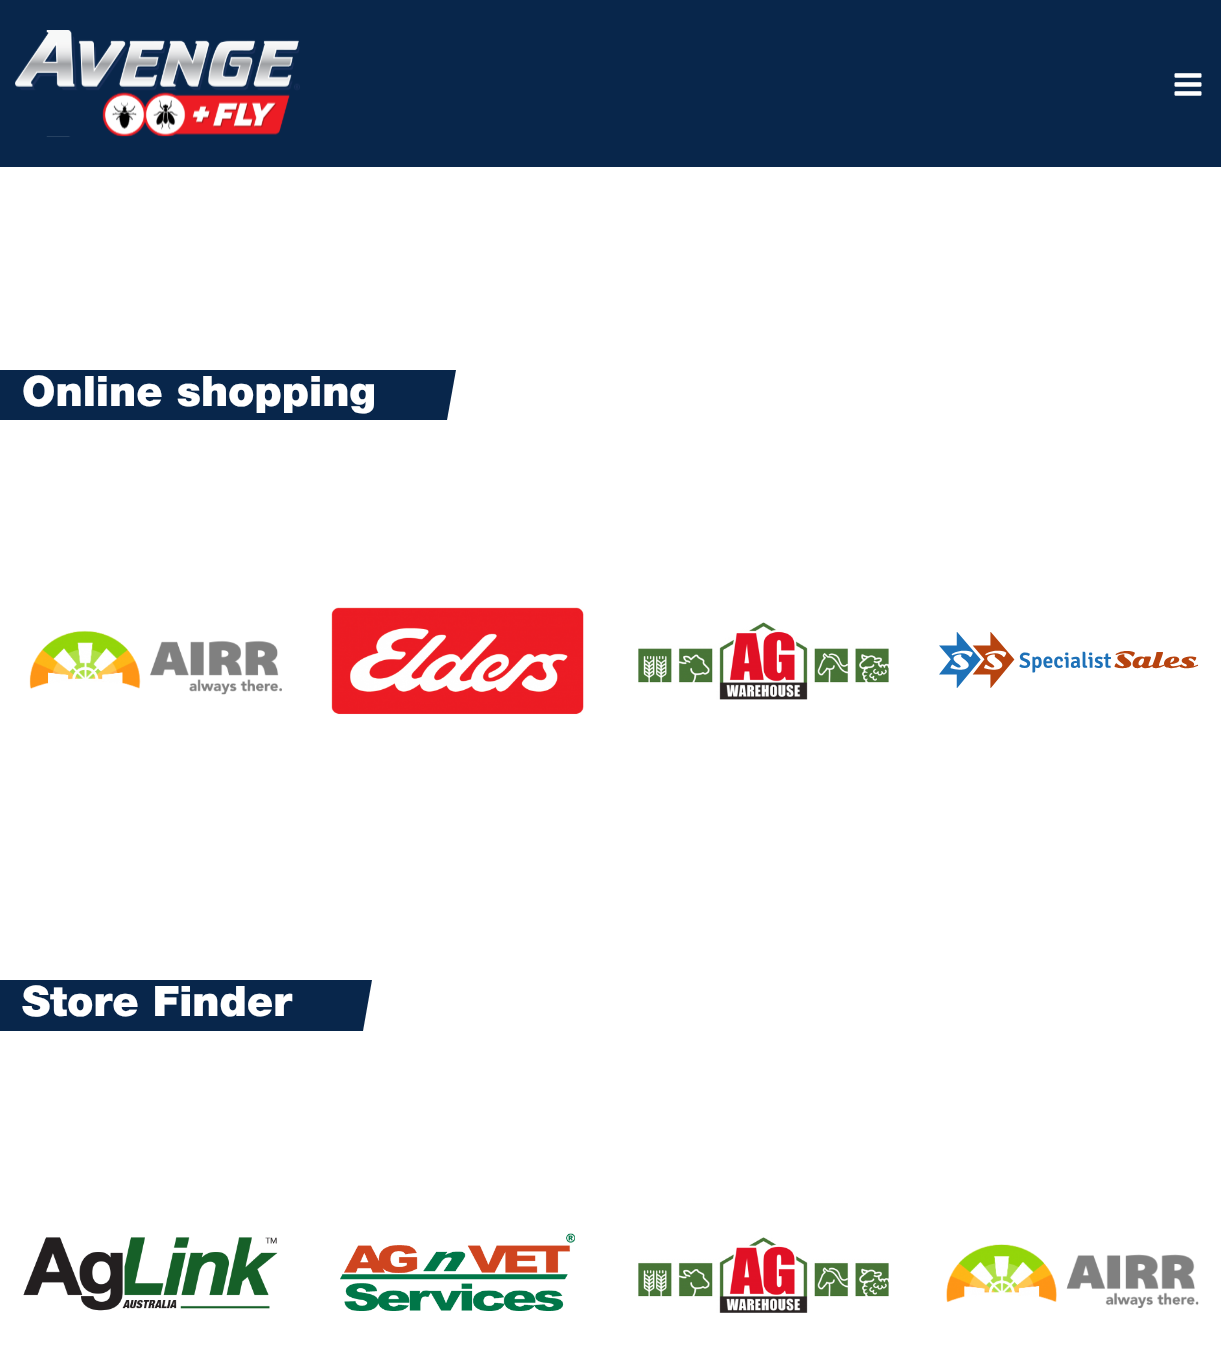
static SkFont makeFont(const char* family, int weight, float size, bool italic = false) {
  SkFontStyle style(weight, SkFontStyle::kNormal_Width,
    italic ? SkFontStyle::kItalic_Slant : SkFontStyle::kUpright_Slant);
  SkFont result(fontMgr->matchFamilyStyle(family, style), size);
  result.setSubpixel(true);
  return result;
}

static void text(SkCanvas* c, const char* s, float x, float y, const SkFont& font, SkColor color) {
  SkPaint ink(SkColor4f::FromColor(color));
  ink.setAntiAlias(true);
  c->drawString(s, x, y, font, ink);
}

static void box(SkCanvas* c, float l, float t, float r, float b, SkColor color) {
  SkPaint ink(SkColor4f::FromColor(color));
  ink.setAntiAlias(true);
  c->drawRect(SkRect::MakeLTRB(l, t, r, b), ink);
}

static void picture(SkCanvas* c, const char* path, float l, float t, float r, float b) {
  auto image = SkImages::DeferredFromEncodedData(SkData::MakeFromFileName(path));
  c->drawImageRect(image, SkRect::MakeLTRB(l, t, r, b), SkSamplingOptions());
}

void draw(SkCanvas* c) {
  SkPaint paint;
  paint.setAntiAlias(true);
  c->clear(0xffffffff);
  box(c, 0, 0, 1221, 167, 0xff08264b);
  picture(c, "img_01.png", 15, 30, 300, 137);
  picture(c, "img_02.png", 1174, 73, 1202, 96);
  paint.setColor(0xff08264b);
  c->drawPath(SkPathBuilder().moveTo(-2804, 370).lineTo(456, 370).lineTo(447, 420).lineTo(-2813, 420).close().detach(), paint);
  SkFont face1 = makeFont("Helvetica Neue", 900, 42);
  text(c, "Online shopping", 22, 406, face1, 0xffffffff);
  picture(c, "img_03.png", 29, 630, 282, 695);
  picture(c, "img_04.png", 331, 607, 584, 715);
  picture(c, "img_05.png", 638, 622, 889, 700);
  picture(c, "img_06.png", 939, 632, 1199, 688);
  c->drawPath(SkPathBuilder().moveTo(-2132, 980).lineTo(372, 980).lineTo(363, 1031).lineTo(-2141, 1031).close().detach(), paint);
  text(c, "Store Finder", 22, 1016, face1, 0xffffffff);
  picture(c, "img_07.png", 23, 1237, 278, 1311);
  picture(c, "img_08.png", 340, 1233, 575, 1311);
  picture(c, "img_09.png", 638, 1237, 889, 1313);
  picture(c, "img_10.png", 946, 1244, 1199, 1308);
}
